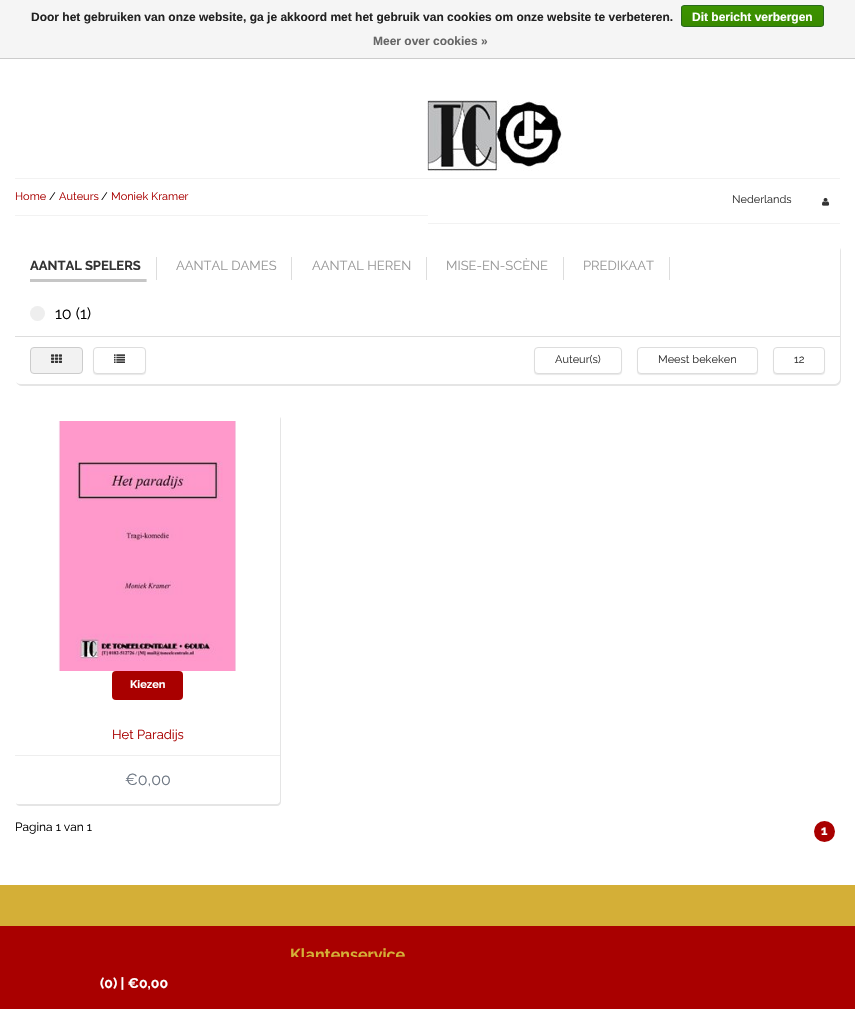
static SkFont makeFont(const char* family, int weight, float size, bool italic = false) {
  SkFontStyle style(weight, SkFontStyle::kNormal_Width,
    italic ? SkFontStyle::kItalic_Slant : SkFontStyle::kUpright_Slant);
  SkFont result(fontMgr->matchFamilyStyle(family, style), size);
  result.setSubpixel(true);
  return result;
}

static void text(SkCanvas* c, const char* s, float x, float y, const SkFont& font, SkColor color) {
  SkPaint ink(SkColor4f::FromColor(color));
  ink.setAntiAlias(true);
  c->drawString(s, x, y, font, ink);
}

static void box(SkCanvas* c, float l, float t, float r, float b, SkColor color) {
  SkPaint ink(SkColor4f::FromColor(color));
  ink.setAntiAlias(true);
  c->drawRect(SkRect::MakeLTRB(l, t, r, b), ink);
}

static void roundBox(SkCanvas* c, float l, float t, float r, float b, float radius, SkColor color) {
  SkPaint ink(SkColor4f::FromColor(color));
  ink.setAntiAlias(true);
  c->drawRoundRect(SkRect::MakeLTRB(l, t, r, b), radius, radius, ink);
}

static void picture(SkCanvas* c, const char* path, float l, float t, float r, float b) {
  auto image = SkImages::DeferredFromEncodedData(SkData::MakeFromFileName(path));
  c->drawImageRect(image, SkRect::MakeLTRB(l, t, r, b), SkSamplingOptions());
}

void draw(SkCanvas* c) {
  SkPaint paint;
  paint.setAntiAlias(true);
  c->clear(0xffffffff);
  box(c, 0, 0, 855, 58, 0xfff5f5f5);
  box(c, 0, 58, 855, 59, 0xffcccccc);
  SkFont face1 = makeFont("Liberation Sans", 700, 12);
  text(c, "Door het gebruiken van onze website, ga je akkoord met het gebruik van cookies om onze website te verbeteren.", 31, 21, face1, 0xff222222);
  c->save();
  c->clipPath(SkPathBuilder().moveTo(684, 5).lineTo(821, 5).cubicTo(822.5f, 5, 824, 6.5f, 824, 8).lineTo(824, 24).cubicTo(824, 25.5f, 822.5f, 27, 821, 27).lineTo(684, 27).cubicTo(682.5f, 27, 681, 25.5f, 681, 24).lineTo(681, 8).cubicTo(681, 6.5f, 682.5f, 5, 684, 5).close().detach(), true);
  {
    const SkColor colors[] = {0xff3c9300, 0xff398a00};
    const float stops[] = {0, 1};
    const SkPoint ends[] = {{753, 6}, {753, 26}};
    paint.setShader(SkGradientShader::MakeLinear(ends, colors, stops, 2, SkTileMode::kClamp));
    paint.setAlpha(255);
  }
  c->drawRect(SkRect::MakeLTRB(681, 6, 824, 26), paint);
  c->restore();
  paint.setStyle(SkPaint::kStroke_Style);
  paint.setStrokeWidth(1);
  paint.setShader(nullptr);
  paint.setColor(0xff29691d);
  c->drawRoundRect(SkRect::MakeLTRB(681.5f, 5.5f, 823.5f, 26.5f), 2.5f, 2.5f, paint);
  text(c, "Dit bericht verbergen", 692, 21, face1, 0xffffffff);
  text(c, "Meer over cookies »", 373, 45, face1, 0xff666666);
  picture(c, "img_01.png", 427, 100, 562, 171);
  box(c, 15, 178, 840, 179, 0xfff2f2f2);
  box(c, 15, 215, 428, 216, 0xfff2f2f2);
  SkFont face2 = makeFont("Raleway", 400, 11);
  text(c, "Home", 15, 200, face2, 0xffa90000);
  text(c, "/", 49, 200, face2, 0xff000000);
  text(c, "Auteurs", 59, 200, face2, 0xffa90000);
  text(c, "/", 101, 200, face2, 0xff000000);
  text(c, "Moniek Kramer", 111, 200, face2, 0xffa90000);
  box(c, 428, 223, 840, 224, 0xfff2f2f2);
  text(c, "Nederlands", 732, 203, face2, 0xff333333);
  picture(c, "img_02.png", 822, 197, 830, 206);
  paint.setStyle(SkPaint::kFill_Style);
  paint.setColor(0xffe5e5e5);
  c->drawPath(SkPathBuilder().moveTo(16, 382).cubicTo(17, 384, 19, 386, 22, 386).lineTo(835, 386).cubicTo(838, 386, 841, 383, 841, 380).lineTo(841, 252).cubicTo(841, 251, 841, 249, 840, 248).lineTo(840, 378).cubicTo(840, 381, 837, 384, 834, 384).lineTo(21, 384).cubicTo(19, 384, 17, 383, 16, 382).close().detach(), paint);
  roundBox(c, 15, 244, 840, 384, 6, 0xffffffff);
  box(c, 156, 257, 157, 280, 0xffdddddd);
  SkFont face3 = makeFont("Raleway", 700, 13);
  text(c, "AANTAL SPELERS", 30, 270, face3, 0xff333333);
  box(c, 291, 257, 292, 280, 0xffdddddd);
  SkFont face4 = makeFont("Raleway", 400, 13);
  text(c, "AANTAL DAMES", 176, 270, face4, 0xff999999);
  box(c, 426, 257, 427, 280, 0xffdddddd);
  text(c, "AANTAL HEREN", 312, 270, face4, 0xff999999);
  box(c, 563, 257, 564, 280, 0xffdddddd);
  text(c, "MISE-EN-SCÈNE", 446, 270, face4, 0xff999999);
  box(c, 669, 257, 670, 280, 0xffdddddd);
  text(c, "PREDIKAAT", 583, 270, face4, 0xff999999);
  box(c, 30, 279, 147, 282, 0xffc6c6c6);
  box(c, 146, 279, 147, 282, 0xffdddddd);
  box(c, 15, 336, 840, 337, 0xffdddddd);
  paint.setColor(0xffeeeeee);
  c->drawCircle(37.5f, 313.5f, 7.5f, paint);
  SkFont face5 = makeFont("Raleway", 400, 16);
  text(c, "10 (1)", 55, 319, face5, 0xff000000);
  paint.setColor(0xfff2f2f2);
  c->drawRoundRect(SkRect::MakeLTRB(30.5f, 347.5f, 82.5f, 373.5f), 3.5f, 3.5f, paint);
  paint.setStyle(SkPaint::kStroke_Style);
  paint.setColor(0xffcccccc);
  c->drawRoundRect(SkRect::MakeLTRB(30.5f, 347.5f, 82.5f, 373.5f), 3.5f, 3.5f, paint);
  picture(c, "img_03.png", 51, 354, 62, 363);
  paint.setStyle(SkPaint::kFill_Style);
  paint.setColor(0x1a221919);
  paint.setMaskFilter(SkMaskFilter::MakeBlur(kNormal_SkBlurStyle, 0.5f));
  c->drawRoundRect(SkRect::MakeLTRB(93, 348, 146, 375), 4, 4, paint);
  paint.setMaskFilter(nullptr);
  paint.setColor(0xffffffff);
  c->drawRoundRect(SkRect::MakeLTRB(93.5f, 347.5f, 145.5f, 373.5f), 3.5f, 3.5f, paint);
  paint.setStyle(SkPaint::kStroke_Style);
  paint.setColor(0xffdddddd);
  c->drawRoundRect(SkRect::MakeLTRB(93.5f, 347.5f, 145.5f, 373.5f), 3.5f, 3.5f, paint);
  picture(c, "img_04.png", 114, 354, 125, 363);
  paint.setStyle(SkPaint::kFill_Style);
  paint.setColor(0x1a221919);
  paint.setMaskFilter(SkMaskFilter::MakeBlur(kNormal_SkBlurStyle, 0.5f));
  c->drawRoundRect(SkRect::MakeLTRB(534, 348, 622, 375), 4, 4, paint);
  paint.setMaskFilter(nullptr);
  paint.setColor(0xffffffff);
  c->drawRoundRect(SkRect::MakeLTRB(534.5f, 347.5f, 621.5f, 373.5f), 3.5f, 3.5f, paint);
  paint.setStyle(SkPaint::kStroke_Style);
  paint.setColor(0xffdddddd);
  c->drawRoundRect(SkRect::MakeLTRB(534.5f, 347.5f, 621.5f, 373.5f), 3.5f, 3.5f, paint);
  text(c, "Auteur(s)", 555, 363, face2, 0xff333333);
  paint.setStyle(SkPaint::kFill_Style);
  paint.setColor(0x1a221919);
  paint.setMaskFilter(SkMaskFilter::MakeBlur(kNormal_SkBlurStyle, 0.5f));
  c->drawRoundRect(SkRect::MakeLTRB(637, 348, 758, 375), 4, 4, paint);
  paint.setMaskFilter(nullptr);
  paint.setColor(0xffffffff);
  c->drawRoundRect(SkRect::MakeLTRB(637.5f, 347.5f, 757.5f, 373.5f), 3.5f, 3.5f, paint);
  paint.setStyle(SkPaint::kStroke_Style);
  paint.setColor(0xffdddddd);
  c->drawRoundRect(SkRect::MakeLTRB(637.5f, 347.5f, 757.5f, 373.5f), 3.5f, 3.5f, paint);
  text(c, "Meest bekeken", 658, 363, face2, 0xff333333);
  paint.setStyle(SkPaint::kFill_Style);
  paint.setColor(0x1a221919);
  paint.setMaskFilter(SkMaskFilter::MakeBlur(kNormal_SkBlurStyle, 0.5f));
  c->drawRoundRect(SkRect::MakeLTRB(773, 348, 825, 375), 4, 4, paint);
  paint.setMaskFilter(nullptr);
  paint.setColor(0xffffffff);
  c->drawRoundRect(SkRect::MakeLTRB(773.5f, 347.5f, 824.5f, 373.5f), 3.5f, 3.5f, paint);
  paint.setStyle(SkPaint::kStroke_Style);
  paint.setColor(0xffdddddd);
  c->drawRoundRect(SkRect::MakeLTRB(773.5f, 347.5f, 824.5f, 373.5f), 3.5f, 3.5f, paint);
  text(c, "12", 794, 363, face2, 0xff333333);
  paint.setStyle(SkPaint::kFill_Style);
  paint.setColor(0xffe5e5e5);
  c->drawPath(SkPathBuilder().moveTo(16, 803).cubicTo(16, 805, 18, 806, 20, 806).lineTo(277, 806).cubicTo(279, 806, 281, 804, 281, 802).lineTo(281, 420).cubicTo(281, 419, 281, 418, 280, 417).lineTo(280, 800).cubicTo(280, 802, 278, 804, 276, 804).lineTo(19, 804).cubicTo(18, 804, 17, 804, 16, 803).close().detach(), paint);
  roundBox(c, 15, 414, 280, 804, 4, 0xffffffff);
  picture(c, "img_05.png", 58, 421, 236, 671);
  roundBox(c, 112, 671, 183, 700, 4, 0xffa90000);
  SkFont face6 = makeFont("Raleway", 700, 11);
  text(c, "Kiezen", 130, 688, face6, 0xffffffff);
  text(c, "Het Paradijs", 112, 739, face4, 0xffa90000);
  box(c, 15, 755, 280, 756, 0xffeeeeee);
  text(c, "€0,00", 125, 785, face5, 0xff6d7682);
  SkFont face7 = makeFont("Raleway", 400, 12);
  text(c, "Pagina 1 van 1", 15, 831, face7, 0xff000000);
  paint.setColor(0xffa90000);
  c->drawCircle(824.5f, 831.5f, 10.5f, paint);
  text(c, "1", 821, 835, face3, 0xffffffff);
  box(c, 0, 885, 855, 926, 0xffd4af37);
  box(c, 0, 926, 855, 957, 0xffa90000);
  SkFont face8 = makeFont("Raleway", 700, 16);
  text(c, "Klantenservice", 290, 960, face8, 0xffd4af37);
  box(c, 0, 957, 855, 1009, 0xffa90000);
  SkFont face9 = makeFont("Raleway", 700, 14);
  text(c, "(0) | €0,00", 100, 988, face9, 0xffffffff);
}
